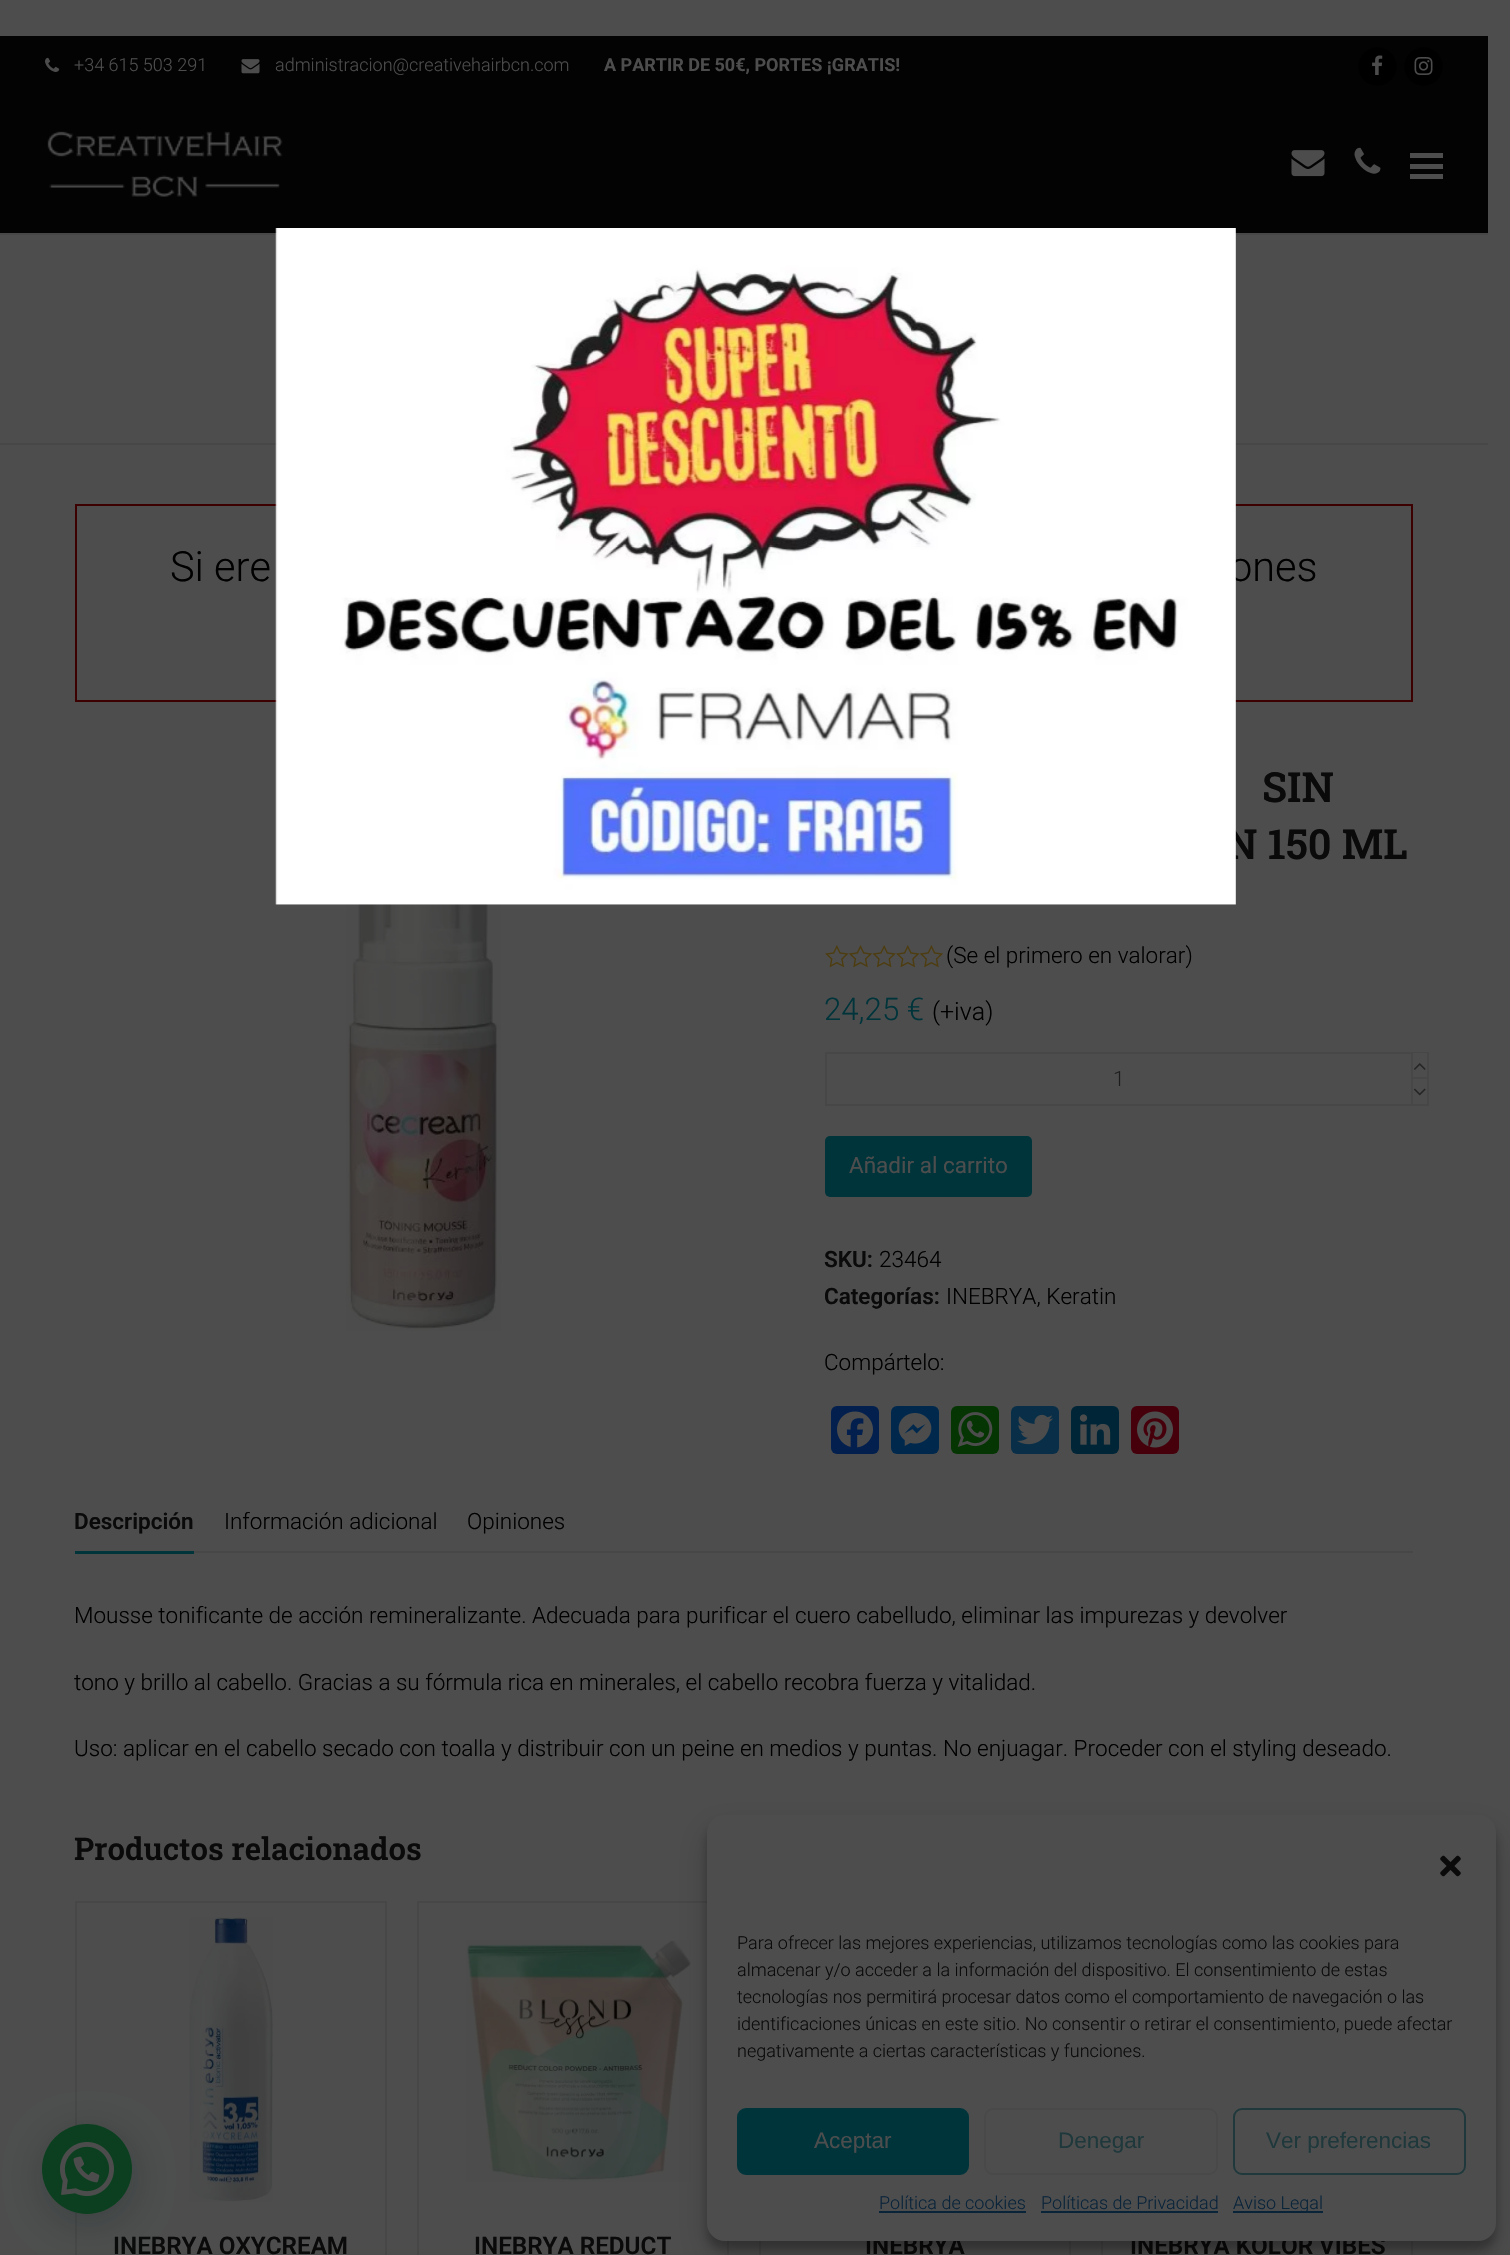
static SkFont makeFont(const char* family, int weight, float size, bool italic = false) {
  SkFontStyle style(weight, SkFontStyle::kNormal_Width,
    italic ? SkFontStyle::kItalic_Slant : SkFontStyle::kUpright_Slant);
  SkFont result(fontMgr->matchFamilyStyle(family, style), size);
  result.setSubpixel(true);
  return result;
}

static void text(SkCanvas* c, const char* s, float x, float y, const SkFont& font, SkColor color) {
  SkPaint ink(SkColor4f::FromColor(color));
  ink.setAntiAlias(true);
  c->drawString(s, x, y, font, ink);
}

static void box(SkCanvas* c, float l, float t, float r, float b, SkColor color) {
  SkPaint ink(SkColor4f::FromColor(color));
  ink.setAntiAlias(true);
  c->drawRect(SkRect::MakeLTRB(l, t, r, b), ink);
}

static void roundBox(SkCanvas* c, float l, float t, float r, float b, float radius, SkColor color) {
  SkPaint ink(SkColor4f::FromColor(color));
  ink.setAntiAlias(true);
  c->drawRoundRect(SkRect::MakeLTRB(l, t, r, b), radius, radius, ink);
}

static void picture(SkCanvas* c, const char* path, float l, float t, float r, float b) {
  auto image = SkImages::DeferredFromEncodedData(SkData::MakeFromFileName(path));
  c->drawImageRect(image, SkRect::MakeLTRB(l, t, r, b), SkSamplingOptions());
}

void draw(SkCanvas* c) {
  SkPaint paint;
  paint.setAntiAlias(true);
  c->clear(0xff4d4d4d);
  box(c, 0, 36, 1488, 233, 0xff030303);
  picture(c, "img_01.png", 45, 57, 60, 72);
  SkFont face1 = makeFont("Roboto", 300, 18);
  text(c, "+34 615 503 291", 74, 71, face1, 0xff4d4d4d);
  picture(c, "img_02.png", 241, 59, 260, 74);
  text(c, "administracion@creativehairbcn.com", 275, 71, face1, 0xff4d4d4d);
  SkFont face2 = makeFont("Roboto", 700, 18);
  text(c, "A PARTIR DE 50€, PORTES ¡GRATIS!", 604, 71, face2, 0xff4d4d4d);
  paint.setColor(0xff000000);
  c->drawCircle(1377.5f, 66.5f, 19.5f, paint);
  picture(c, "img_03.png", 1372, 55, 1383, 75);
  c->drawCircle(1423.5f, 66.5f, 19.5f, paint);
  picture(c, "img_04.png", 1414, 57, 1433, 75);
  picture(c, "img_05.png", 47, 131, 283, 197);
  picture(c, "img_06.png", 1291, 150, 1325, 177);
  picture(c, "img_07.png", 1354, 147, 1381, 174);
  box(c, 1410, 164, 1443, 169, 0xff4d4d4d);
  box(c, 1410, 153, 1443, 158, 0xff4d4d4d);
  box(c, 1410, 174, 1443, 179, 0xff4d4d4d);
  box(c, 0, 233, 1488, 235, 0xff474747);
  box(c, 0, 443, 1488, 445, 0xff474747);
  paint.setStyle(SkPaint::kStroke_Style);
  paint.setStrokeWidth(2);
  paint.setColor(0xff3d0000);
  c->drawRect(SkRect::MakeLTRB(76, 505, 1412, 701), paint);
  SkFont face3 = makeFont("Roboto", 300, 41.5f);
  text(c, "Si ere", 170, 581, face3, 0xff000000);
  text(c, "ones", 1229, 581, face3, 0xff000000);
  picture(c, "img_08.png", 346, 904, 501, 1331);
  SkFont face4 = makeFont("Roboto Slab", 600, 41.5f);
  text(c, "SIN", 1262, 802, face4, 0xff0a0a0a);
  text(c, "N 150 ML", 1225, 859, face4, 0xff0a0a0a);
  picture(c, "img_09.png", 825, 945, 944, 968);
  SkFont face5 = makeFont("Roboto", 300, 22.5f);
  text(c, "(Se el primero en valorar)", 946, 963, face5, 0xff000000);
  SkFont face6 = makeFont("Roboto", 300, 31.2f);
  text(c, "24,25 €", 824, 1020, face6, 0xff00343b);
  SkFont face7 = makeFont("Roboto", 300, 25);
  text(c, "(+iva)", 932, 1020, face7, 0xff000000);
  paint.setColor(0xff474747);
  c->drawRect(SkRect::MakeLTRB(826, 1053, 1412, 1105), paint);
  SkFont face8 = makeFont("Roboto", 300, 21);
  text(c, "1", 1113, 1086, face8, 0xff1d1d1d);
  box(c, 1413, 1052, 1428, 1053, 0xff474747);
  box(c, 1427, 1052, 1429, 1106, 0xff474747);
  box(c, 1413, 1104, 1428, 1106, 0xff474747);
  picture(c, "img_10.png", 1414, 1063, 1426, 1070);
  box(c, 1413, 1077, 1427, 1079, 0xff474747);
  picture(c, "img_11.png", 1414, 1088, 1426, 1096);
  roundBox(c, 825, 1136, 1032, 1197, 5, 0xff00343b);
  SkFont face9 = makeFont("Roboto", 400, 22.5f);
  text(c, "Añadir al carrito", 849, 1173, face9, 0xff4d4d4d);
  SkFont face10 = makeFont("Roboto", 600, 22.5f);
  text(c, "SKU:", 824, 1267, face10, 0xff0a0a0a);
  text(c, "23464", 879, 1267, face5, 0xff000000);
  text(c, "Categorías:", 824, 1304, face10, 0xff0a0a0a);
  text(c, "INEBRYA, Keratin", 946, 1304, face5, 0xff000000);
  text(c, "Compártelo:", 824, 1370, face5, 0xff000000);
  roundBox(c, 831, 1406, 879, 1454, 6, 0xff021f4d);
  picture(c, "img_12.png", 837, 1411, 873, 1448);
  roundBox(c, 891, 1406, 939, 1454, 6, 0xff00284d);
  picture(c, "img_13.png", 898, 1413, 932, 1446);
  roundBox(c, 951, 1406, 999, 1454, 6, 0xff053503);
  picture(c, "img_14.png", 957, 1412, 993, 1447);
  roundBox(c, 1011, 1406, 1059, 1454, 6, 0xff092f48);
  picture(c, "img_15.png", 1017, 1414, 1053, 1445);
  roundBox(c, 1071, 1406, 1119, 1454, 6, 0xff002536);
  picture(c, "img_16.png", 1079, 1414, 1111, 1445);
  roundBox(c, 1131, 1406, 1179, 1454, 6, 0xff45000b);
  picture(c, "img_17.png", 1137, 1411, 1173, 1448);
  box(c, 194, 1551, 1413, 1553, 0xff474747);
  box(c, 75, 1551, 194, 1554, 0xff00343b);
  text(c, "Descripción", 74, 1529, face10, 0xff0a0a0a);
  text(c, "Información adicional", 224, 1529, face5, 0xff000000);
  text(c, "Opiniones", 467, 1529, face5, 0xff000000);
  text(c, "Mousse tonificante de acción remineralizante. Adecuada para purificar el cuero cabelludo, eliminar las impurezas y devolver", 74, 1623, face5, 0xff000000);
  text(c, "tono y brillo al cabello. Gracias a su fórmula rica en minerales, el cabello recobra fuerza y vitalidad.", 74, 1690, face5, 0xff000000);
  text(c, "Uso: aplicar en el cabello secado con toalla y distribuir con un peine en medios y puntas. No enjuagar. Proceder con el styling deseado.", 74, 1756, face5, 0xff000000);
  SkFont face11 = makeFont("Roboto Slab", 600, 31.2f);
  text(c, "Productos relacionados", 74, 1860, face11, 0xff0a0a0a);
  c->drawRect(SkRect::MakeLTRB(76, 1902, 386, 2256), paint);
  picture(c, "img_18.png", 189, 1917, 273, 2202);
  SkFont face12 = makeFont("Roboto", 600, 24.25f);
  text(c, "INEBRYA OXYCREAM", 113, 2254, face12, 0xff0a0a0a);
  c->drawRect(SkRect::MakeLTRB(418, 1902, 728, 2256), paint);
  picture(c, "img_19.png", 466, 1940, 691, 2182);
  text(c, "INEBRYA REDUCT", 474, 2254, face12, 0xff0a0a0a);
  c->drawRect(SkRect::MakeLTRB(760, 1902, 1070, 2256), paint);
  text(c, "INEBRYA", 865, 2254, face12, 0xff0a0a0a);
  c->drawRect(SkRect::MakeLTRB(1102, 1902, 1412, 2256), paint);
  text(c, "INEBRYA KOLOR VIBES", 1130, 2254, face12, 0xff0a0a0a);
  picture(c, "img_20.png", 275, 228, 1236, 905);
  paint.setStyle(SkPaint::kFill_Style);
  paint.setColor(0x3d021c19);
  paint.setMaskFilter(SkMaskFilter::MakeBlur(kNormal_SkBlurStyle, 18));
  c->drawRoundRect(SkRect::MakeLTRB(44, 2133, 134, 2223), 45, 45, paint);
  paint.setMaskFilter(nullptr);
  paint.setColor(0xff0b3f1f);
  c->drawCircle(87, 2169, 45, paint);
  picture(c, "img_21.png", 60, 2142, 114, 2196);
  paint.setColor(0x3b000000);
  paint.setMaskFilter(SkMaskFilter::MakeBlur(kNormal_SkBlurStyle, 4.5f));
  c->drawRoundRect(SkRect::MakeLTRB(707, 1824, 1496, 2250), 18, 18, paint);
  paint.setMaskFilter(nullptr);
  paint.setColor(0x30000000);
  paint.setMaskFilter(SkMaskFilter::MakeBlur(kNormal_SkBlurStyle, 15));
  c->drawRoundRect(SkRect::MakeLTRB(707, 1830, 1496, 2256), 18, 18, paint);
  paint.setMaskFilter(nullptr);
  roundBox(c, 707, 1815, 1496, 2241, 18, 0xff4d4d4d);
  picture(c, "img_22.png", 1440, 1855, 1461, 1877);
  text(c, "Para ofrecer las mejores experiencias, utilizamos tecnologías como las cookies para", 737, 1949, face1, 0xff0a0a0a);
  text(c, "almacenar y/o acceder a la información del dispositivo. El consentimiento de estas", 737, 1976, face1, 0xff0a0a0a);
  text(c, "tecnologías nos permitirá procesar datos como el comportamiento de navegación o las", 737, 2003, face1, 0xff0a0a0a);
  text(c, "identificaciones únicas en este sitio. No consentir o retirar el consentimiento, puede afectar", 737, 2030, face1, 0xff0a0a0a);
  text(c, "negativamente a ciertas características y funciones.", 737, 2057, face1, 0xff0a0a0a);
  paint.setColor(0xff00343b);
  c->drawRoundRect(SkRect::MakeLTRB(738, 2109, 968, 2174), 8, 8, paint);
  paint.setStyle(SkPaint::kStroke_Style);
  c->drawRoundRect(SkRect::MakeLTRB(738, 2109, 968, 2174), 8, 8, paint);
  SkFont face13 = makeFont("Liberation Sans", 400, 22.5f);
  text(c, "Aceptar", 814, 2148, face13, 0xff4d4d4d);
  paint.setColor(0xff494949);
  c->drawRoundRect(SkRect::MakeLTRB(985, 2109, 1217, 2174), 8, 8, paint);
  text(c, "Denegar", 1058, 2148, face13, 0xff1f383b);
  paint.setColor(0xff1f383b);
  c->drawRoundRect(SkRect::MakeLTRB(1234, 2109, 1465, 2174), 8, 8, paint);
  text(c, "Ver preferencias", 1266, 2148, face13, 0xff1f383b);
  text(c, "Política de cookies", 879, 2209, face1, 0xff092339);
  box(c, 879, 2211, 1026, 2213, 0xff092339);
  text(c, "Políticas de Privacidad", 1041, 2209, face1, 0xff092339);
  box(c, 1041, 2211, 1218, 2213, 0xff092339);
  box(c, 1233, 2211, 1323, 2213, 0xff092339);
  text(c, "Aviso Legal", 1233, 2209, face1, 0xff092339);
}
